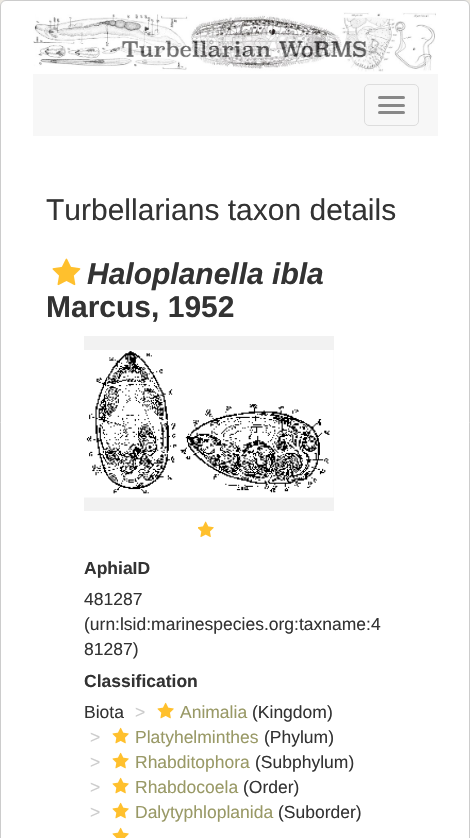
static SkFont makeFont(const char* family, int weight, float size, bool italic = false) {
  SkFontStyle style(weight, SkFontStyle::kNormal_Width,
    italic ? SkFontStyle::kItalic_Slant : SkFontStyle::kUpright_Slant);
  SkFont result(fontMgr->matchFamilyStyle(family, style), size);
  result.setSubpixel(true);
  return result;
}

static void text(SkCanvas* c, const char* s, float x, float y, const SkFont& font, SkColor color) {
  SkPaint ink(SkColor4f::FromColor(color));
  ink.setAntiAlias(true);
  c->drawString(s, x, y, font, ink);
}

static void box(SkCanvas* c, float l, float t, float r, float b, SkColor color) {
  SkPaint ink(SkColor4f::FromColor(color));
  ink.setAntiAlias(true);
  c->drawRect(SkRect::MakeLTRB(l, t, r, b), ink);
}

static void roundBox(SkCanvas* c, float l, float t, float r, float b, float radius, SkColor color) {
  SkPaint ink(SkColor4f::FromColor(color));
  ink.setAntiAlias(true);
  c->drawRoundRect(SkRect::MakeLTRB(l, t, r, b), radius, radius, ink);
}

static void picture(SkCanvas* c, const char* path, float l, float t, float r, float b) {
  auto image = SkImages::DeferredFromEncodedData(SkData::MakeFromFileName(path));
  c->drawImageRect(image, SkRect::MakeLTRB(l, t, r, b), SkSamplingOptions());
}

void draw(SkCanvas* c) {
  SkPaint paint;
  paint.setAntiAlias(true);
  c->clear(0xffece9e2);
  paint.setColor(0xffffffff);
  c->drawRoundRect(SkRect::MakeLTRB(0.5f, 0.5f, 469.5f, 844.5f), 5.5f, 5.5f, paint);
  paint.setStyle(SkPaint::kStroke_Style);
  paint.setStrokeWidth(1);
  paint.setColor(0xffcccccc);
  c->drawRoundRect(SkRect::MakeLTRB(0.5f, 0.5f, 469.5f, 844.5f), 5.5f, 5.5f, paint);
  picture(c, "img_01.png", 33, 12, 436, 72);
  box(c, 33, 74, 438, 136, 0xfff7f7f7);
  paint.setColor(0xffdddddd);
  c->drawRoundRect(SkRect::MakeLTRB(364.5f, 84.5f, 418.5f, 125.5f), 4.5f, 4.5f, paint);
  roundBox(c, 378, 96, 405, 99, 1.5f, 0xff888888);
  roundBox(c, 378, 104, 405, 107, 1.5f, 0xff888888);
  roundBox(c, 378, 111, 405, 114, 1.5f, 0xff888888);
  SkFont face1 = makeFont("Liberation Sans", 400, 30);
  text(c, "Turbellarians taxon details", 46, 220, face1, 0xff333333);
  picture(c, "img_02.png", 52, 258, 81, 286);
  SkFont face2 = makeFont("Liberation Sans", 700, 30, true);
  text(c, "Haloplanella ibla", 87, 284, face2, 0xff333333);
  SkFont face3 = makeFont("Liberation Sans", 700, 30);
  text(c, "Marcus, 1952", 46, 317, face3, 0xff333333);
  box(c, 84, 336, 334, 511, 0xfff2f2f2);
  picture(c, "img_03.png", 84, 350, 334, 498);
  picture(c, "img_04.png", 198, 521, 214, 537);
  SkFont face4 = makeFont("Liberation Sans", 700, 17.5f);
  text(c, "AphiaID", 84, 574, face4, 0xff333333);
  SkFont face5 = makeFont("Liberation Sans", 400, 17.5f);
  text(c, "481287", 84, 605, face5, 0xff333333);
  text(c, "(urn:lsid:marinespecies.org:taxname:4", 84, 630, face5, 0xff333333);
  text(c, "81287)", 84, 655, face5, 0xff333333);
  text(c, "Classification", 84, 687, face4, 0xff333333);
  text(c, "Biota", 84, 718, face5, 0xff333333);
  text(c, ">", 135, 718, face5, 0xffcccccc);
  picture(c, "img_05.png", 157, 702, 174, 719);
  text(c, "Animalia", 180, 718, face5, 0xff999966);
  text(c, "(Kingdom)", 252, 718, face5, 0xff333333);
  text(c, ">", 90, 743, face5, 0xffcccccc);
  picture(c, "img_05.png", 112, 727, 129, 744);
  text(c, "Platyhelminthes", 135, 743, face5, 0xff999966);
  text(c, "(Phylum)", 264, 743, face5, 0xff333333);
  text(c, ">", 90, 768, face5, 0xffcccccc);
  picture(c, "img_05.png", 112, 752, 129, 769);
  text(c, "Rhabditophora", 135, 768, face5, 0xff999966);
  text(c, "(Subphylum)", 255, 768, face5, 0xff333333);
  text(c, ">", 90, 793, face5, 0xffcccccc);
  picture(c, "img_05.png", 112, 777, 129, 794);
  text(c, "Rhabdocoela", 135, 793, face5, 0xff999966);
  text(c, "(Order)", 243, 793, face5, 0xff333333);
  text(c, ">", 90, 818, face5, 0xffcccccc);
  picture(c, "img_05.png", 112, 802, 129, 819);
  text(c, "Dalytyphloplanida", 135, 818, face5, 0xff999966);
  text(c, "(Suborder)", 278, 818, face5, 0xff333333);
  picture(c, "img_06.png", 112, 827, 129, 838);
}
